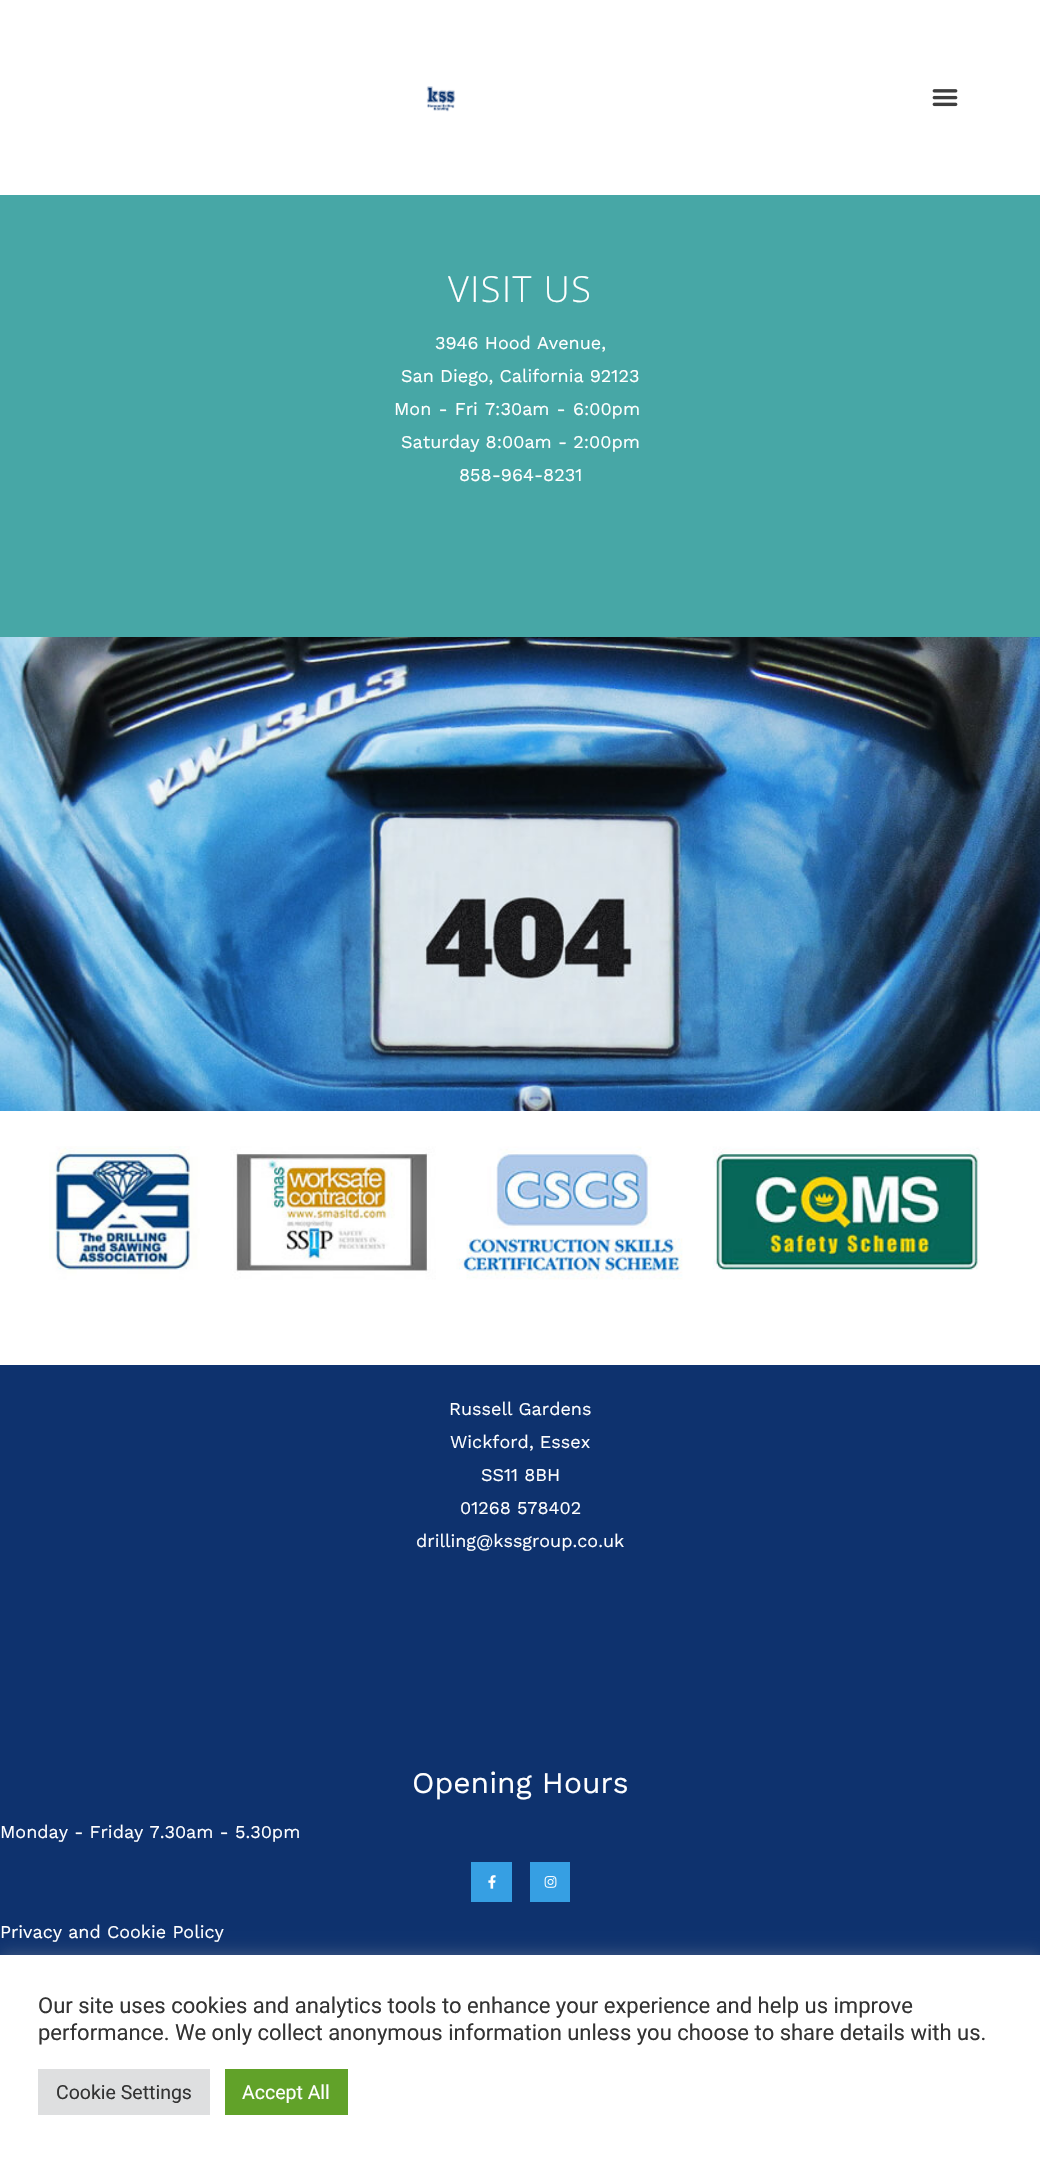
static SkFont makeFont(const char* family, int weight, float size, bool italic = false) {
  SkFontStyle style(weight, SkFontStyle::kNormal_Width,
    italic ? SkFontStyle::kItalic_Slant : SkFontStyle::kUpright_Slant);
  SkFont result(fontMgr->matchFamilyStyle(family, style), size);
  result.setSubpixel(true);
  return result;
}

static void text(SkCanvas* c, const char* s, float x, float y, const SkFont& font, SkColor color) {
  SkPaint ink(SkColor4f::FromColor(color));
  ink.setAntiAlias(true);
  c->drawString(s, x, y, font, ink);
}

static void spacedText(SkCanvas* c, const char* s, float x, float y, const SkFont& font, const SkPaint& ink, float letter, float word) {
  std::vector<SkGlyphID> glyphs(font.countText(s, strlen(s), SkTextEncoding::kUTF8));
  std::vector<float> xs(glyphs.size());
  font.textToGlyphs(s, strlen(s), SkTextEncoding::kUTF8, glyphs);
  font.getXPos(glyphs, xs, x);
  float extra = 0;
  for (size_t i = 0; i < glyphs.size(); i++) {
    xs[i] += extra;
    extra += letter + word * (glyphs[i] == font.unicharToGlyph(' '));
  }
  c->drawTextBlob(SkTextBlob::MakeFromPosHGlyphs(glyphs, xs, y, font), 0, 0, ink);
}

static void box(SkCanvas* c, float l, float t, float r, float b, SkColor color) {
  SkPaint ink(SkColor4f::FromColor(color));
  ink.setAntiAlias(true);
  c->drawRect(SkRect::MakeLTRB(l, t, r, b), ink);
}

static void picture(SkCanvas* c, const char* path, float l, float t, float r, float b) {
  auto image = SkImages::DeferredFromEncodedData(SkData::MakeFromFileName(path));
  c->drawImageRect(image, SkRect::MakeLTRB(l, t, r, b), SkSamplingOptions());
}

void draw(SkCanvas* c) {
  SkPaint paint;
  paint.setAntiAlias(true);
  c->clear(0xffffffff);
  picture(c, "img_01.png", 426, 86, 456, 112);
  picture(c, "img_02.png", 932, 89, 958, 107);
  box(c, 0, 195, 1040, 637, 0xff47a7a6);
  SkFont face1 = makeFont("Open Sans", 300, 36);
  paint.setColor(0xffffffff);
  spacedText(c, "VISIT US", 448, 302, face1, paint, 1.5f, 0);
  SkFont face2 = makeFont("Work Sans", 400, 18);
  text(c, "3946 Hood Avenue,", 435, 349, face2, 0xffffffff);
  text(c, "San Diego, California 92123", 401, 382, face2, 0xffffffff);
  spacedText(c, "Mon - Fri 7:30am - 6:00pm", 394, 415, face2, paint, 0, 1);
  text(c, "Saturday 8:00am - 2:00pm", 401, 448, face2, 0xffffffff);
  text(c, "858-964-8231", 459, 481, face2, 0xffffffff);
  picture(c, "img_03.png", 0, 637, 1040, 1111);
  picture(c, "img_04.png", 49, 1146, 980, 1280);
  box(c, 0, 1365, 1040, 1955, 0xff0e326e);
  text(c, "Russell Gardens", 449, 1415, face2, 0xffffffff);
  text(c, "Wickford, Essex", 450, 1448, face2, 0xffffffff);
  text(c, "SS11 8BH", 481, 1481, face2, 0xffffffff);
  text(c, "01268 578402", 460, 1514, face2, 0xffffffff);
  text(c, "drilling@kssgroup.co.uk", 416, 1547, face2, 0xffffffff);
  SkFont face3 = makeFont("Work Sans", 400, 30);
  text(c, "Opening Hours", 412, 1793, face3, 0xffffffff);
  text(c, "Monday - Friday 7.30am - 5.30pm", 0, 1838, face2, 0xffffffff);
  box(c, 471, 1862, 512, 1902, 0xff369fe3);
  picture(c, "img_05.png", 488, 1875, 496, 1889);
  box(c, 530, 1862, 570, 1902, 0xff369fe3);
  picture(c, "img_06.png", 544, 1876, 557, 1888);
  text(c, "Privacy and Cookie Policy", 0, 1938, face2, 0xffffffff);
  paint.setColor(0x4dacabab);
  paint.setMaskFilter(SkMaskFilter::MakeBlur(kNormal_SkBlurStyle, 7.5f));
  c->drawRect(SkRect::MakeLTRB(0, 1953, 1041, 2159), paint);
  paint.setMaskFilter(nullptr);
  box(c, 0, 1955, 1040, 2159, 0xffffffff);
  SkFont face4 = makeFont("Roboto", 400, 22);
  text(c, "Our site uses cookies and analytics tools to enhance your experience and help us improve", 38, 2013, face4, 0xff333333);
  text(c, "performance. We only collect anonymous information unless you choose to share details with us.", 38, 2040, face4, 0xff333333);
  box(c, 38, 2069, 210, 2115, 0xffdedfe0);
  SkFont face5 = makeFont("Roboto", 400, 19.5f);
  text(c, "Cookie Settings", 56, 2099, face5, 0xff333333);
  box(c, 225, 2069, 348, 2115, 0xff61a229);
  text(c, "Accept All", 242, 2099, face5, 0xffffffff);
}
